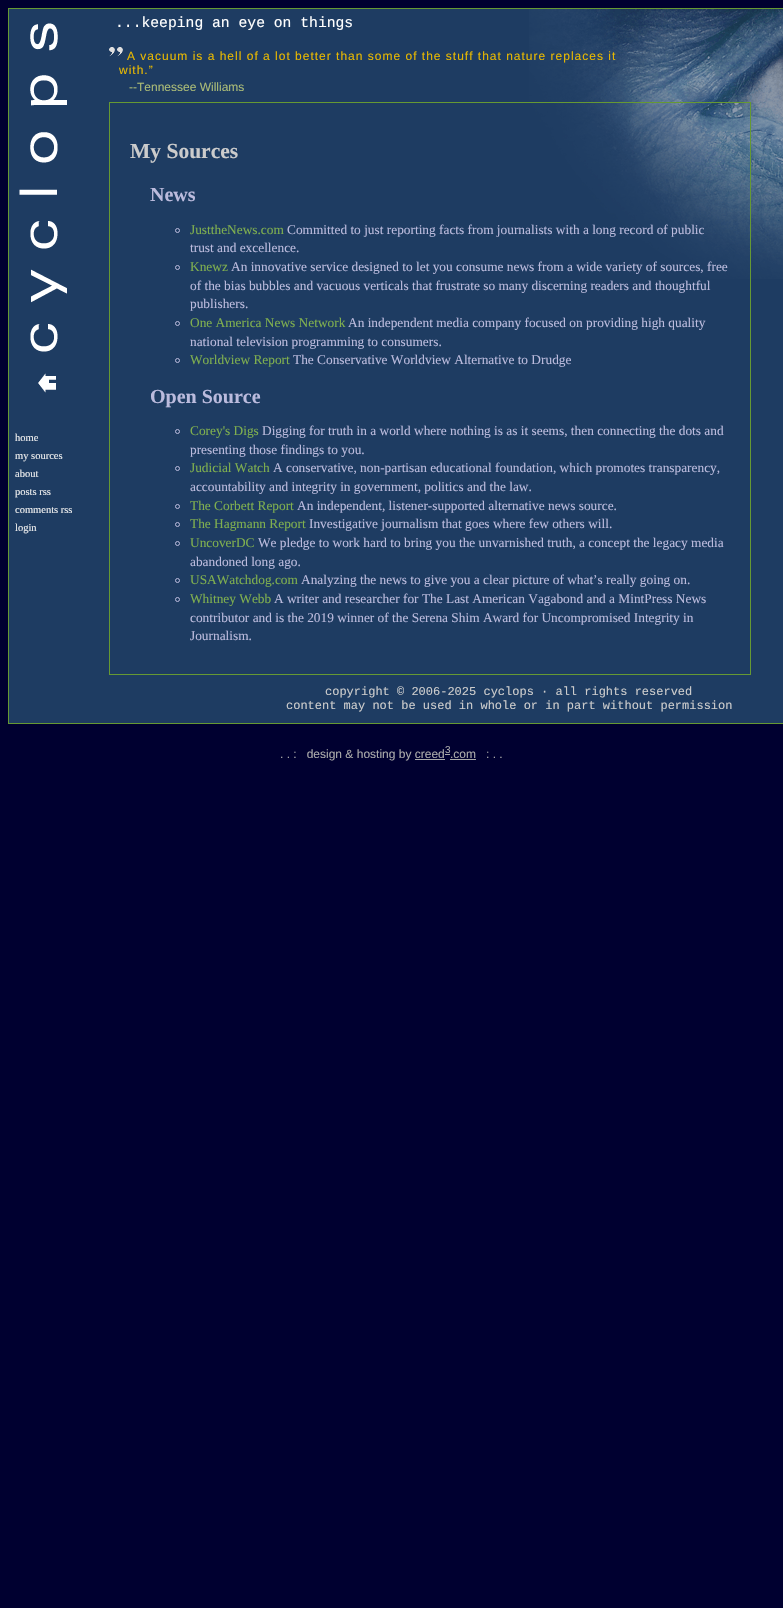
static SkFont makeFont(const char* family, int weight, float size, bool italic = false) {
  SkFontStyle style(weight, SkFontStyle::kNormal_Width,
    italic ? SkFontStyle::kItalic_Slant : SkFontStyle::kUpright_Slant);
  SkFont result(fontMgr->matchFamilyStyle(family, style), size);
  result.setSubpixel(true);
  return result;
}

static void text(SkCanvas* c, const char* s, float x, float y, const SkFont& font, SkColor color) {
  SkPaint ink(SkColor4f::FromColor(color));
  ink.setAntiAlias(true);
  c->drawString(s, x, y, font, ink);
}

static void spacedText(SkCanvas* c, const char* s, float x, float y, const SkFont& font, const SkPaint& ink, float letter, float word) {
  std::vector<SkGlyphID> glyphs(font.countText(s, strlen(s), SkTextEncoding::kUTF8));
  std::vector<float> xs(glyphs.size());
  font.textToGlyphs(s, strlen(s), SkTextEncoding::kUTF8, glyphs);
  font.getXPos(glyphs, xs, x);
  float extra = 0;
  for (size_t i = 0; i < glyphs.size(); i++) {
    xs[i] += extra;
    extra += letter + word * (glyphs[i] == font.unicharToGlyph(' '));
  }
  c->drawTextBlob(SkTextBlob::MakeFromPosHGlyphs(glyphs, xs, y, font), 0, 0, ink);
}

static void box(SkCanvas* c, float l, float t, float r, float b, SkColor color) {
  SkPaint ink(SkColor4f::FromColor(color));
  ink.setAntiAlias(true);
  c->drawRect(SkRect::MakeLTRB(l, t, r, b), ink);
}

static void picture(SkCanvas* c, const char* path, float l, float t, float r, float b) {
  auto image = SkImages::DeferredFromEncodedData(SkData::MakeFromFileName(path));
  c->drawImageRect(image, SkRect::MakeLTRB(l, t, r, b), SkSamplingOptions());
}

void draw(SkCanvas* c) {
  SkPaint paint;
  paint.setAntiAlias(true);
  c->clear(0xff000030);
  box(c, 9, 9, 783, 723, 0xff1e3c62);
  picture(c, "img_01.png", 529, 9, 783, 279);
  paint.setStyle(SkPaint::kStroke_Style);
  paint.setStrokeWidth(1);
  paint.setColor(0xff669933);
  c->drawRect(SkRect::MakeLTRB(8.5f, 8.5f, 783.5f, 723.5f), paint);
  SkFont face1 = makeFont("Liberation Mono", 400, 14.7f);
  text(c, "...keeping an eye on things", 115, 27, face1, 0xffffffff);
  picture(c, "img_02.png", 109, 47, 123, 57);
  SkFont face2 = makeFont("Liberation Sans", 400, 12);
  paint.setStyle(SkPaint::kFill_Style);
  paint.setColor(0xffe9b900);
  spacedText(c, "A vacuum is a hell of a lot better than some of the stuff that nature replaces it", 127, 60, face2, paint, 1, 0);
  spacedText(c, "with.”", 119, 74, face2, paint, 1, 0);
  text(c, "--Tennessee Williams", 129, 91, face2, 0xffaabb77);
  picture(c, "img_03.png", 19, 23, 67, 352);
  picture(c, "img_04.png", 38, 373, 56, 393);
  SkFont face3 = makeFont("Liberation Serif", 400, 10.5f);
  text(c, "home", 15, 441, face3, 0xfff0f0f0);
  text(c, "my sources", 15, 459, face3, 0xfff0f0f0);
  text(c, "about", 15, 477, face3, 0xfff0f0f0);
  text(c, "posts rss", 15, 495, face3, 0xfff0f0f0);
  text(c, "comments rss", 15, 513, face3, 0xfff0f0f0);
  text(c, "login", 15, 531, face3, 0xfff0f0f0);
  paint.setStyle(SkPaint::kStroke_Style);
  paint.setColor(0xff669933);
  c->drawRect(SkRect::MakeLTRB(109.5f, 102.5f, 750.5f, 674.5f), paint);
  SkFont face4 = makeFont("Liberation Serif", 700, 21.5f);
  text(c, "My Sources", 130, 158, face4, 0xffcccccc);
  SkFont face5 = makeFont("Liberation Serif", 700, 20);
  text(c, "News", 150, 201, face5, 0xffbbbbdd);
  paint.setColor(0xffbbbbdd);
  c->drawCircle(177.5f, 230.5f, 2, paint);
  SkFont face6 = makeFont("Liberation Serif", 400, 13.35f);
  text(c, "JusttheNews.com", 190, 234, face6, 0xff7faf4f);
  text(c, "Committed to just reporting facts from journalists with a long record of public", 287, 234, face6, 0xffbbbbdd);
  text(c, "trust and excellence.", 190, 252, face6, 0xffbbbbdd);
  c->drawCircle(177.5f, 267.5f, 2, paint);
  text(c, "Knewz", 190, 271, face6, 0xff7faf4f);
  text(c, "An innovative service designed to let you consume news from a wide variety of sources, free", 231, 271, face6, 0xffbbbbdd);
  text(c, "of the bias bubbles and vacuous verticals that frustrate so many discerning readers and thoughtful", 190, 290, face6, 0xffbbbbdd);
  text(c, "publishers.", 190, 308, face6, 0xffbbbbdd);
  c->drawCircle(177.5f, 323.5f, 2, paint);
  text(c, "One America News Network", 190, 327, face6, 0xff7faf4f);
  text(c, "An independent media company focused on providing high quality", 348, 327, face6, 0xffbbbbdd);
  text(c, "national television programming to consumers.", 190, 346, face6, 0xffbbbbdd);
  c->drawCircle(177.5f, 360.5f, 2, paint);
  text(c, "Worldview Report", 190, 364, face6, 0xff7faf4f);
  text(c, "The Conservative Worldview Alternative to Drudge", 293, 364, face6, 0xffbbbbdd);
  text(c, "Open Source", 150, 403, face5, 0xffbbbbdd);
  c->drawCircle(177.5f, 431.5f, 2, paint);
  text(c, "Corey's Digs", 190, 435, face6, 0xff7faf4f);
  text(c, "Digging for truth in a world where nothing is as it seems, then connecting the dots and", 262, 435, face6, 0xffbbbbdd);
  text(c, "presenting those findings to you.", 190, 454, face6, 0xffbbbbdd);
  c->drawCircle(177.5f, 468.5f, 2, paint);
  text(c, "Judicial Watch", 190, 472, face6, 0xff7faf4f);
  text(c, "A conservative, non-partisan educational foundation, which promotes transparency,", 273, 472, face6, 0xffbbbbdd);
  text(c, "accountability and integrity in government, politics and the law.", 190, 491, face6, 0xffbbbbdd);
  c->drawCircle(177.5f, 506.5f, 2, paint);
  text(c, "The Corbett Report", 190, 510, face6, 0xff7faf4f);
  text(c, "An independent, listener-supported alternative news source.", 297, 510, face6, 0xffbbbbdd);
  c->drawCircle(177.5f, 524.5f, 2, paint);
  text(c, "The Hagmann Report", 190, 528, face6, 0xff7faf4f);
  text(c, "Investigative journalism that goes where few others will.", 309, 528, face6, 0xffbbbbdd);
  c->drawCircle(177.5f, 543.5f, 2, paint);
  text(c, "UncoverDC", 190, 547, face6, 0xff7faf4f);
  text(c, "We pledge to work hard to bring you the unvarnished truth, a concept the legacy media", 258, 547, face6, 0xffbbbbdd);
  text(c, "abandoned long ago.", 190, 566, face6, 0xffbbbbdd);
  c->drawCircle(177.5f, 580.5f, 2, paint);
  text(c, "USAWatchdog.com", 190, 584, face6, 0xff7faf4f);
  text(c, "Analyzing the news to give you a clear picture of what’s really going on.", 301, 584, face6, 0xffbbbbdd);
  c->drawCircle(177.5f, 599.5f, 2, paint);
  text(c, "Whitney Webb", 190, 603, face6, 0xff7faf4f);
  text(c, "A writer and researcher for The Last American Vagabond and a MintPress News", 274, 603, face6, 0xffbbbbdd);
  text(c, "contributor and is the 2019 winner of the Serena Shim Award for Uncompromised Integrity in", 190, 622, face6, 0xffbbbbdd);
  text(c, "Journalism.", 190, 640, face6, 0xffbbbbdd);
  SkFont face7 = makeFont("Liberation Mono", 400, 12);
  text(c, "copyright © 2006-2025 cyclops · all rights reserved", 325, 695, face7, 0xffcccccc);
  text(c, "content may not be used in whole or in part without permission", 286, 709, face7, 0xffcccccc);
  text(c, ". . :   design & hosting by creed", 280, 758, face2, 0xffaaaaaa);
  SkFont face8 = makeFont("Liberation Sans", 400, 10);
  text(c, "3", 445, 753, face8, 0xffaaaaaa);
  text(c, ".com", 450, 758, face2, 0xffaaaaaa);
  box(c, 415, 759, 445, 760, 0xffaaaaaa);
  box(c, 445, 754, 450, 755, 0xffaaaaaa);
  box(c, 450, 759, 476, 760, 0xffaaaaaa);
  text(c, ": . .", 486, 758, face2, 0xffaaaaaa);
}
